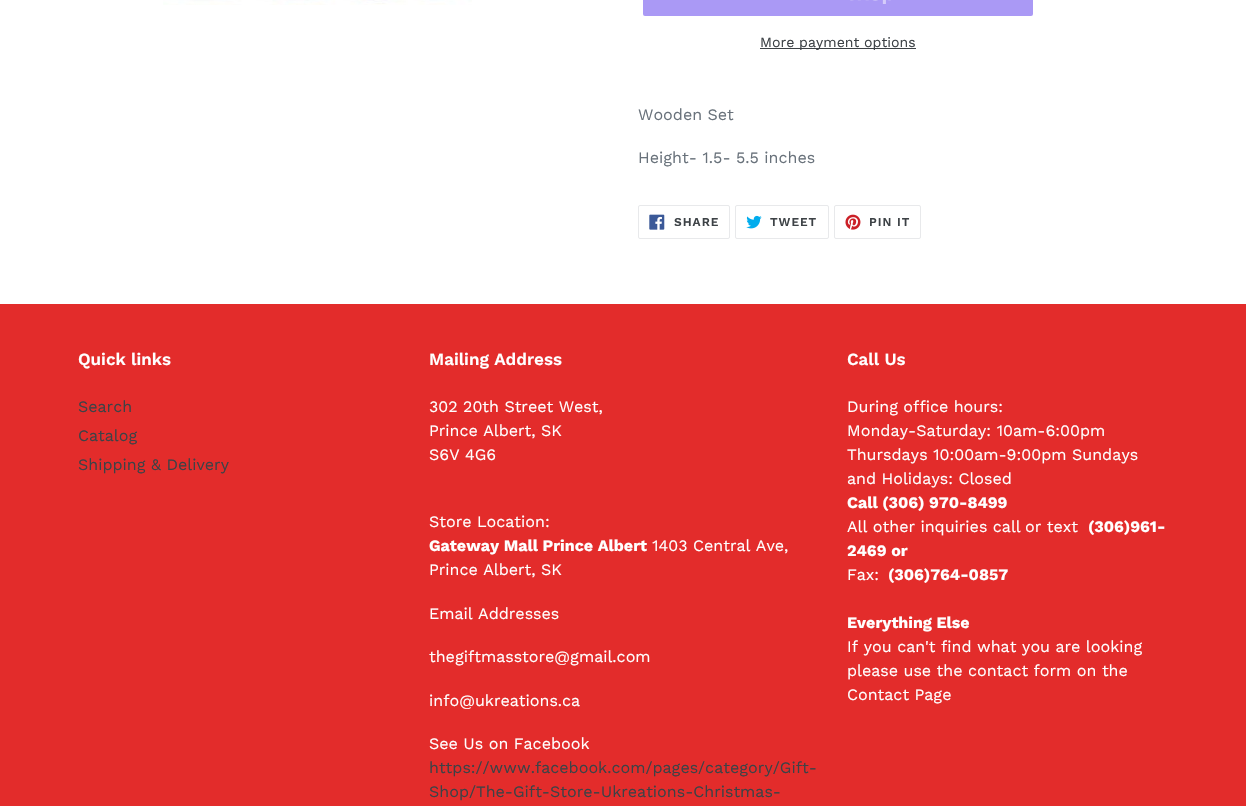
static SkFont makeFont(const char* family, int weight, float size, bool italic = false) {
  SkFontStyle style(weight, SkFontStyle::kNormal_Width,
    italic ? SkFontStyle::kItalic_Slant : SkFontStyle::kUpright_Slant);
  SkFont result(fontMgr->matchFamilyStyle(family, style), size);
  result.setSubpixel(true);
  return result;
}

static void text(SkCanvas* c, const char* s, float x, float y, const SkFont& font, SkColor color) {
  SkPaint ink(SkColor4f::FromColor(color));
  ink.setAntiAlias(true);
  c->drawString(s, x, y, font, ink);
}

static void spacedText(SkCanvas* c, const char* s, float x, float y, const SkFont& font, const SkPaint& ink, float letter, float word) {
  std::vector<SkGlyphID> glyphs(font.countText(s, strlen(s), SkTextEncoding::kUTF8));
  std::vector<float> xs(glyphs.size());
  font.textToGlyphs(s, strlen(s), SkTextEncoding::kUTF8, glyphs);
  font.getXPos(glyphs, xs, x);
  float extra = 0;
  for (size_t i = 0; i < glyphs.size(); i++) {
    xs[i] += extra;
    extra += letter + word * (glyphs[i] == font.unicharToGlyph(' '));
  }
  c->drawTextBlob(SkTextBlob::MakeFromPosHGlyphs(glyphs, xs, y, font), 0, 0, ink);
}

static void box(SkCanvas* c, float l, float t, float r, float b, SkColor color) {
  SkPaint ink(SkColor4f::FromColor(color));
  ink.setAntiAlias(true);
  c->drawRect(SkRect::MakeLTRB(l, t, r, b), ink);
}

static void roundBox(SkCanvas* c, float l, float t, float r, float b, float radius, SkColor color) {
  SkPaint ink(SkColor4f::FromColor(color));
  ink.setAntiAlias(true);
  c->drawRoundRect(SkRect::MakeLTRB(l, t, r, b), radius, radius, ink);
}

static void picture(SkCanvas* c, const char* path, float l, float t, float r, float b) {
  auto image = SkImages::DeferredFromEncodedData(SkData::MakeFromFileName(path));
  c->drawImageRect(image, SkRect::MakeLTRB(l, t, r, b), SkSamplingOptions());
}

void draw(SkCanvas* c) {
  SkPaint paint;
  paint.setAntiAlias(true);
  c->clear(0xffffffff);
  picture(c, "img_01.png", 163, 0, 472, 5);
  roundBox(c, 643, -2, 1033, 16, 2, 0xffaa99f5);
  picture(c, "img_02.png", 850, 0, 891, 4);
  box(c, 760, 48, 916, 49, 0xff3d4246);
  SkFont face1 = makeFont("Work Sans", 400, 14);
  text(c, "More payment options", 760, 47, face1, 0xff3d4246);
  SkFont face2 = makeFont("Work Sans", 400, 16);
  text(c, "Wooden Set", 638, 120, face2, 0xff69727b);
  text(c, "Height- 1.5- 5.5 inches", 638, 163, face2, 0xff69727b);
  paint.setStyle(SkPaint::kStroke_Style);
  paint.setStrokeWidth(1);
  paint.setColor(0xffe8e9eb);
  c->drawRoundRect(SkRect::MakeLTRB(638.5f, 205.5f, 729.5f, 238.5f), 1.5f, 1.5f, paint);
  picture(c, "img_03.png", 649, 214, 665, 230);
  SkFont face3 = makeFont("Work Sans", 600, 12);
  paint.setStyle(SkPaint::kFill_Style);
  paint.setColor(0xff3d4246);
  spacedText(c, "SHARE", 674, 226, face3, paint, 1, 0);
  paint.setStyle(SkPaint::kStroke_Style);
  paint.setColor(0xffe8e9eb);
  c->drawRoundRect(SkRect::MakeLTRB(735.5f, 205.5f, 828.5f, 238.5f), 1.5f, 1.5f, paint);
  picture(c, "img_04.png", 746, 215, 762, 229);
  paint.setStyle(SkPaint::kFill_Style);
  paint.setColor(0xff3d4246);
  spacedText(c, "TWEET", 770, 226, face3, paint, 1, 0);
  paint.setStyle(SkPaint::kStroke_Style);
  paint.setColor(0xffe8e9eb);
  c->drawRoundRect(SkRect::MakeLTRB(834.5f, 205.5f, 920.5f, 238.5f), 1.5f, 1.5f, paint);
  picture(c, "img_05.png", 845, 214, 861, 230);
  paint.setStyle(SkPaint::kFill_Style);
  paint.setColor(0xff3d4246);
  spacedText(c, "PIN IT", 869, 226, face3, paint, 1, 0);
  box(c, 0, 304, 1246, 806, 0xffe32c2b);
  SkFont face4 = makeFont("Work Sans", 600, 17);
  text(c, "Quick links", 78, 365, face4, 0xffffffff);
  text(c, "Search", 78, 412, face2, 0xff3d4246);
  text(c, "Catalog", 78, 441, face2, 0xff3d4246);
  text(c, "Shipping & Delivery", 78, 470, face2, 0xff3d4246);
  text(c, "Mailing Address", 429, 365, face4, 0xffffffff);
  text(c, "302 20th Street West,", 429, 412, face2, 0xffffffff);
  text(c, "Prince Albert, SK", 429, 436, face2, 0xffffffff);
  text(c, "S6V 4G6", 429, 460, face2, 0xffffffff);
  text(c, "Store Location:", 429, 527, face2, 0xffffffff);
  SkFont face5 = makeFont("Work Sans", 700, 16);
  text(c, "Gateway Mall Prince Albert", 429, 551, face5, 0xffffffff);
  text(c, "1403 Central Ave,", 652, 551, face2, 0xffffffff);
  text(c, "Prince Albert, SK", 429, 575, face2, 0xffffffff);
  text(c, "Email Addresses", 429, 619, face2, 0xffffffff);
  text(c, "thegiftmasstore@gmail.com", 429, 662, face2, 0xffffffff);
  text(c, "info@ukreations.ca", 429, 706, face2, 0xffffffff);
  text(c, "See Us on Facebook", 429, 749, face2, 0xffffffff);
  text(c, "https://www.facebook.com/pages/category/Gift-", 429, 773, face2, 0xff3d4246);
  text(c, "Shop/The-Gift-Store-Ukreations-Christmas-", 429, 797, face2, 0xff3d4246);
  text(c, "Call Us", 847, 365, face4, 0xffffffff);
  text(c, "During office hours:", 847, 412, face2, 0xffffffff);
  text(c, "Monday-Saturday: 10am-6:00pm", 847, 436, face2, 0xffffffff);
  text(c, "Thursdays 10:00am-9:00pm Sundays", 847, 460, face2, 0xffffffff);
  text(c, "and Holidays: Closed", 847, 484, face2, 0xffffffff);
  text(c, "Call (306) 970-8499", 847, 508, face5, 0xffffffff);
  text(c, "All other inquiries call", 847, 532, face2, 0xffffffff);
  text(c, "or text", 1025, 532, face2, 0xffffffff);
  text(c, "(306)961-", 1088, 532, face5, 0xffffffff);
  text(c, "2469 or", 847, 556, face5, 0xffffffff);
  text(c, "Fax:", 847, 580, face2, 0xffffffff);
  text(c, "(306)764-0857", 888, 580, face5, 0xffffffff);
  text(c, "Everything Else", 847, 628, face5, 0xffffffff);
  text(c, "If you can't find what you are looking", 847, 652, face2, 0xffffffff);
  text(c, "please use the contact form on the", 847, 676, face2, 0xffffffff);
  text(c, "Contact Page", 847, 700, face2, 0xffffffff);
}
